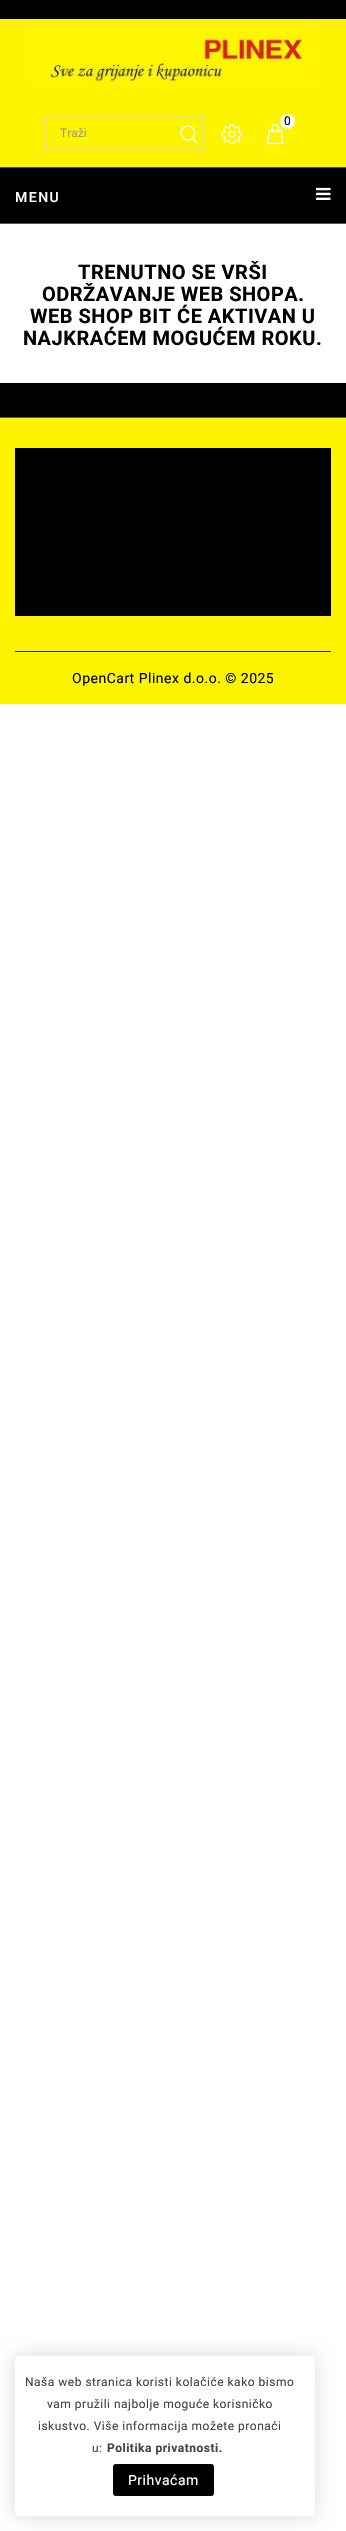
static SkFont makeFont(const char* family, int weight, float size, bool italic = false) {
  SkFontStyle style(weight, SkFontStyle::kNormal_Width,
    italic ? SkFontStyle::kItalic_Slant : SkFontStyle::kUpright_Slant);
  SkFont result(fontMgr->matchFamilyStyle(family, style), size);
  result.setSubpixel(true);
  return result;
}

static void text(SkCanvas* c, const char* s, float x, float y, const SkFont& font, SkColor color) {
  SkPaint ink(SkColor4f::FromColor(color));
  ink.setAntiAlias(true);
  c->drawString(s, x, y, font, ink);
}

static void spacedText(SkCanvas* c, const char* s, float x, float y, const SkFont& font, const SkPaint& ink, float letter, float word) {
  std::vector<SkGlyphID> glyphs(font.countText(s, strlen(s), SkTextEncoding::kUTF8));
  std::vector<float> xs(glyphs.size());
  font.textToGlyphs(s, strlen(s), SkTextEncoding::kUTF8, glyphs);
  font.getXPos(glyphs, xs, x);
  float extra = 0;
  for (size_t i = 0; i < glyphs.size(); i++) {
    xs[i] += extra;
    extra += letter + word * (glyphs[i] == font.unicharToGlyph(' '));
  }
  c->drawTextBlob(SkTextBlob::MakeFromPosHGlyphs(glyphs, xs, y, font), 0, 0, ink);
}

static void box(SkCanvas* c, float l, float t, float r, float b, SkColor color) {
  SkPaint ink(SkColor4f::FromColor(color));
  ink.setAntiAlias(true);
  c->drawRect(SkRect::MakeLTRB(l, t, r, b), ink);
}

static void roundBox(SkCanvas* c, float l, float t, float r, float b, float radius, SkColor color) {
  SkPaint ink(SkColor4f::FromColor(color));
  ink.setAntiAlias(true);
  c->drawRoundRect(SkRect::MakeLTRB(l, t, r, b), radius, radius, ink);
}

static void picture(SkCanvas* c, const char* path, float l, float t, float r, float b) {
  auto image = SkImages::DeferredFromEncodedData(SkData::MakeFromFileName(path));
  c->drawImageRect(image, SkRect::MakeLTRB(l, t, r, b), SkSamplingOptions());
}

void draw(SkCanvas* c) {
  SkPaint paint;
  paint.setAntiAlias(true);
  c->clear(0xffffffff);
  box(c, 0, 0, 346, 19, 0xff000000);
  box(c, 0, 19, 346, 167, 0xfffdf402);
  picture(c, "img_01.png", 30, 26, 316, 86);
  picture(c, "img_02.png", 267, 124, 284, 145);
  paint.setColor(0xffffffff);
  c->drawCircle(287.5f, 121.5f, 7.5f, paint);
  SkFont face1 = makeFont("Roboto", 400, 12);
  text(c, "0", 284, 125, face1, 0xff000000);
  paint.setStyle(SkPaint::kStroke_Style);
  paint.setStrokeWidth(1);
  paint.setColor(0xffd9d9d9);
  c->drawRect(SkRect::MakeLTRB(44.5f, 116.5f, 203.5f, 149.5f), paint);
  text(c, "Traži", 60, 137, face1, 0xff999999);
  picture(c, "img_03.png", 180, 125, 198, 143);
  picture(c, "img_04.png", 221, 124, 242, 144);
  box(c, 0, 168, 346, 223, 0xff000000);
  box(c, 0, 167, 346, 168, 0xff575757);
  box(c, 0, 223, 346, 224, 0xff575757);
  SkFont face2 = makeFont("Roboto", 500, 14);
  paint.setStyle(SkPaint::kFill_Style);
  paint.setColor(0xffffffff);
  spacedText(c, "MENU", 15, 202, face2, paint, 1.5f, 0);
  picture(c, "img_05.png", 316, 187, 331, 200);
  SkFont face3 = makeFont("Roboto", 700, 20);
  paint.setColor(0xff000000);
  spacedText(c, "TRENUTNO SE VRŠI", 78, 279, face3, paint, 0.5f, 0);
  spacedText(c, "ODRŽAVANJE WEB SHOPA.", 42, 301, face3, paint, 0.5f, 0);
  spacedText(c, "WEB SHOP BIT ĆE AKTIVAN U", 30, 323, face3, paint, 0.5f, 0);
  spacedText(c, "NAJKRAĆEM MOGUĆEM ROKU.", 23, 345, face3, paint, 0.5f, 0);
  box(c, 0, 418, 346, 704, 0xfffdf402);
  box(c, 0, 382, 346, 383, 0xfff7f7f7);
  box(c, 0, 383, 346, 417, 0xff000000);
  box(c, 0, 417, 346, 418, 0xff575757);
  box(c, 15, 448, 331, 616, 0xff000000);
  box(c, 15, 651, 331, 652, 0xff2c2c2c);
  SkFont face4 = makeFont("Roboto", 400, 14);
  spacedText(c, "OpenCart Plinex d.o.o. © 2025", 72, 683, face4, paint, 0.5f, 0);
  paint.setColor(0x26000000);
  paint.setMaskFilter(SkMaskFilter::MakeBlur(kNormal_SkBlurStyle, 10));
  c->drawRoundRect(SkRect::MakeLTRB(15, 2356, 315, 2516), 4, 4, paint);
  paint.setMaskFilter(nullptr);
  roundBox(c, 15, 2356, 315, 2516, 4, 0xffffffff);
  paint.setColor(0xff444444);
  spacedText(c, "Naša web stranica koristi kolačiće kako bismo", 25, 2386, face1, paint, 0.5f, 0);
  spacedText(c, "vam pružili najbolje moguće korisničko", 47, 2408, face1, paint, 0.5f, 0);
  spacedText(c, "iskustvo. Više informacija možete pronaći", 38, 2430, face1, paint, 0.5f, 0);
  spacedText(c, "u:", 92, 2452, face1, paint, 0.5f, 0);
  SkFont face5 = makeFont("Roboto", 700, 12);
  spacedText(c, "Politika privatnosti.", 107, 2452, face5, paint, 0.5f, 0);
  roundBox(c, 113, 2464, 214, 2496, 3, 0xff000000);
  paint.setColor(0xffffffff);
  spacedText(c, "Prihvaćam", 128, 2485, face4, paint, 0.5f, 0);
}
